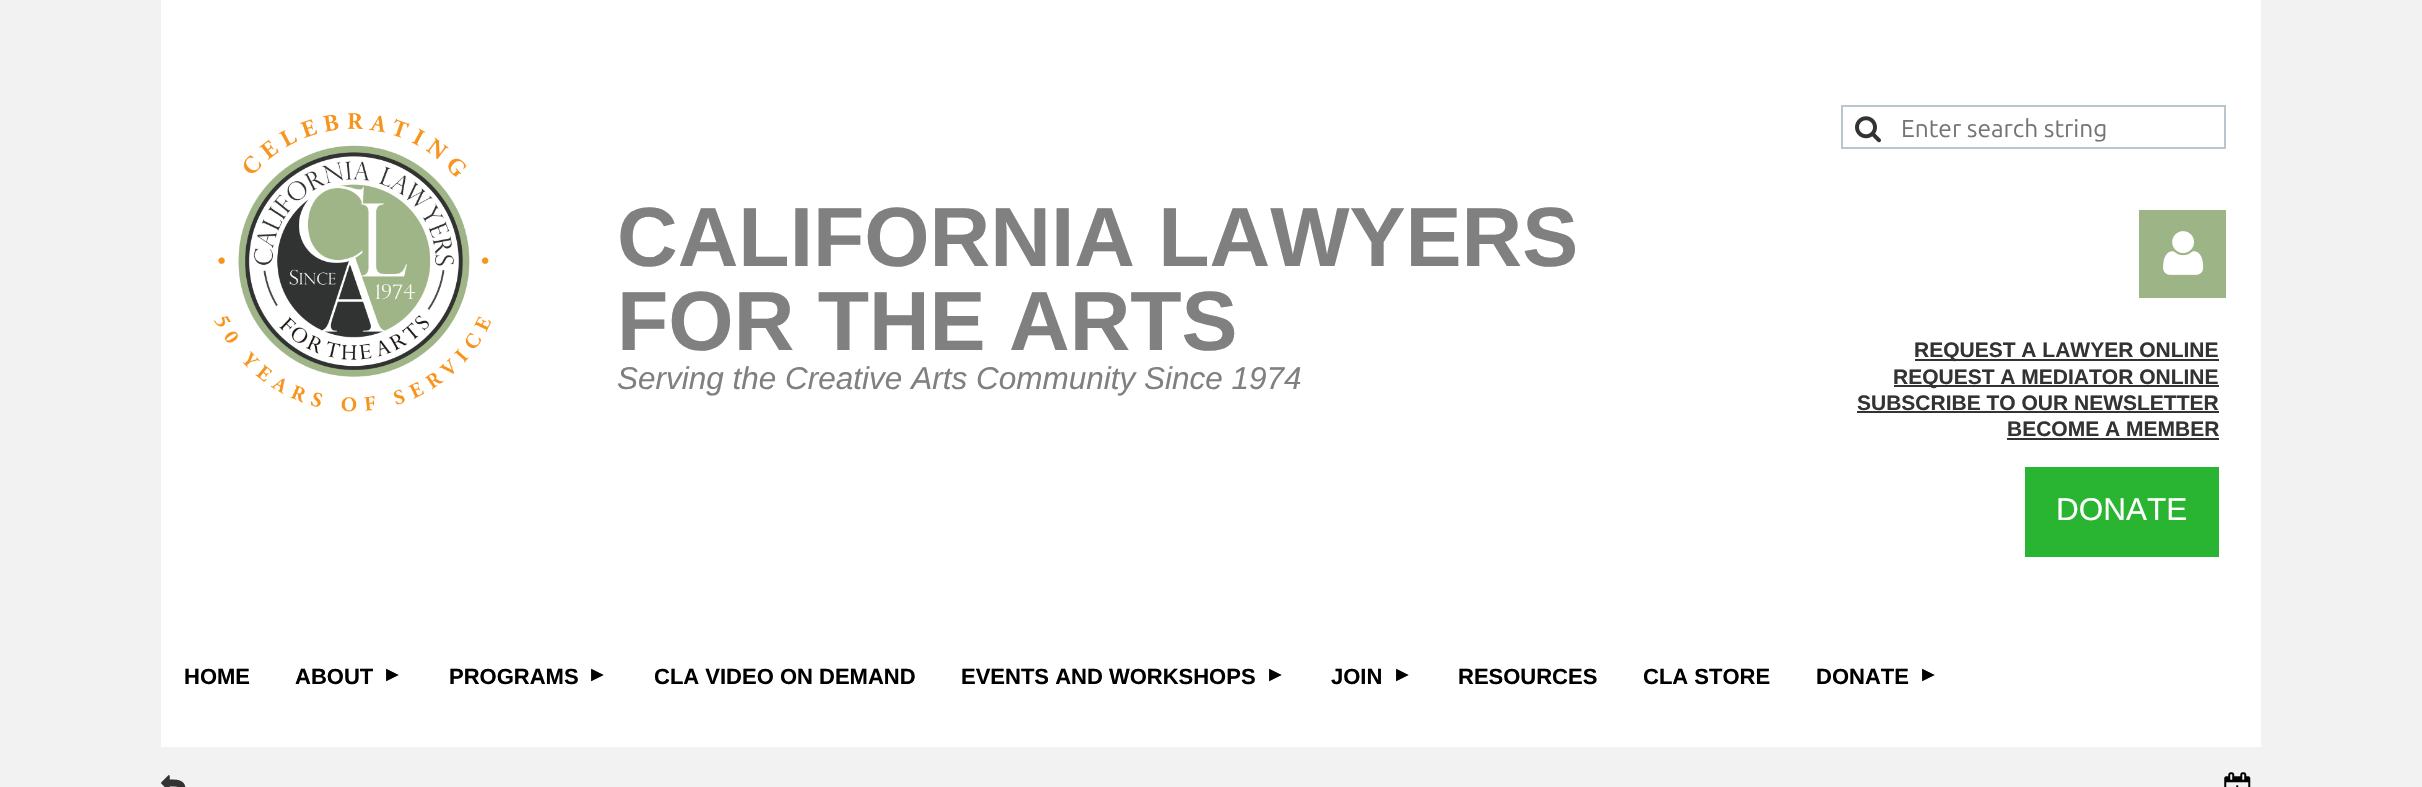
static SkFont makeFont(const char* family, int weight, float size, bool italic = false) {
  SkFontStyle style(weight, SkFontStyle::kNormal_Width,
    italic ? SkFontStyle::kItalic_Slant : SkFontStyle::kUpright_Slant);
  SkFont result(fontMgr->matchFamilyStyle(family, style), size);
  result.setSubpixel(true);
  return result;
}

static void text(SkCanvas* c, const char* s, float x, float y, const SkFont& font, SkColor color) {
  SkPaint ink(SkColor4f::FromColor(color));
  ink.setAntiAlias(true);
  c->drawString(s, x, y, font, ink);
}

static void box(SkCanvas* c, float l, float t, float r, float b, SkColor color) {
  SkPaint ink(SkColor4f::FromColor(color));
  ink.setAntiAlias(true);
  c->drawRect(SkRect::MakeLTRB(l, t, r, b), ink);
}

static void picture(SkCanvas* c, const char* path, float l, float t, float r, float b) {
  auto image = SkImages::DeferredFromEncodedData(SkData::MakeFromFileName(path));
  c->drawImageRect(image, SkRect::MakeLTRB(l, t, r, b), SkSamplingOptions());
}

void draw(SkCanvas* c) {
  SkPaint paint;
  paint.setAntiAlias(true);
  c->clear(0xfff2f2f2);
  box(c, 161, 0, 2261, 747, 0xffffffff);
  picture(c, "img_01.png", 214, 113, 492, 412);
  SkFont face1 = makeFont("Liberation Sans", 700, 84);
  text(c, "CALIFORNIA LAWYERS", 617, 266, face1, 0xff808080);
  text(c, "FOR THE ARTS", 617, 350, face1, 0xff808080);
  SkFont face2 = makeFont("Liberation Sans", 400, 31.5f, true);
  text(c, "Serving the Creative Arts Community Since 1974", 617, 389, face2, 0xff808080);
  paint.setStyle(SkPaint::kStroke_Style);
  paint.setStrokeWidth(2);
  paint.setColor(0xffb8c6cd);
  c->drawRect(SkRect::MakeLTRB(1842, 106, 2225, 148), paint);
  picture(c, "img_02.png", 1855, 116, 1881, 143);
  SkFont face3 = makeFont("Ubuntu", 400, 24.5f);
  text(c, "Enter search string", 1901, 137, face3, 0xff757575);
  box(c, 2139, 210, 2226, 298, 0xff9db487);
  picture(c, "img_03.png", 2163, 231, 2204, 275);
  box(c, 1915, 359, 2219, 361, 0xff333333);
  SkFont face4 = makeFont("Liberation Sans", 700, 21);
  text(c, "REQUEST A LAWYER ONLINE", 1914, 357, face4, 0xff333333);
  box(c, 1894, 385, 2219, 387, 0xff333333);
  text(c, "REQUEST A MEDIATOR ONLINE", 1893, 384, face4, 0xff333333);
  text(c, "SUBSCRIBE TO OUR NEWSLETTER", 1857, 410, face4, 0xff333333);
  box(c, 1857, 411, 2219, 413, 0xff333333);
  text(c, "BECOME A MEMBER", 2007, 436, face4, 0xff333333);
  box(c, 2007, 438, 2219, 440, 0xff333333);
  box(c, 2025, 467, 2219, 557, 0xff29b431);
  SkFont face5 = makeFont("Liberation Sans", 400, 31.5f);
  text(c, "DONATE", 2056, 520, face5, 0xffffffff);
  SkFont face6 = makeFont("Liberation Sans", 700, 22);
  text(c, "HOME", 184, 684, face6, 0xff000000);
  text(c, "ABOUT", 295, 684, face6, 0xff000000);
  SkFont face7 = makeFont("Liberation Sans", 400, 21);
  text(c, "►", 382, 681, face7, 0xff000000);
  text(c, "PROGRAMS", 449, 684, face6, 0xff000000);
  text(c, "►", 587, 681, face7, 0xff000000);
  text(c, "CLA VIDEO ON DEMAND", 654, 684, face6, 0xff000000);
  text(c, "EVENTS AND WORKSHOPS", 961, 684, face6, 0xff000000);
  text(c, "►", 1265, 681, face7, 0xff000000);
  text(c, "JOIN", 1331, 684, face6, 0xff000000);
  text(c, "►", 1392, 681, face7, 0xff000000);
  text(c, "RESOURCES", 1458, 684, face6, 0xff000000);
  text(c, "CLA STORE", 1643, 684, face6, 0xff000000);
  text(c, "DONATE", 1816, 684, face6, 0xff000000);
  text(c, "►", 1918, 681, face7, 0xff000000);
  picture(c, "img_04.png", 161, 775, 186, 787);
  picture(c, "img_05.png", 2224, 772, 2251, 787);
}
